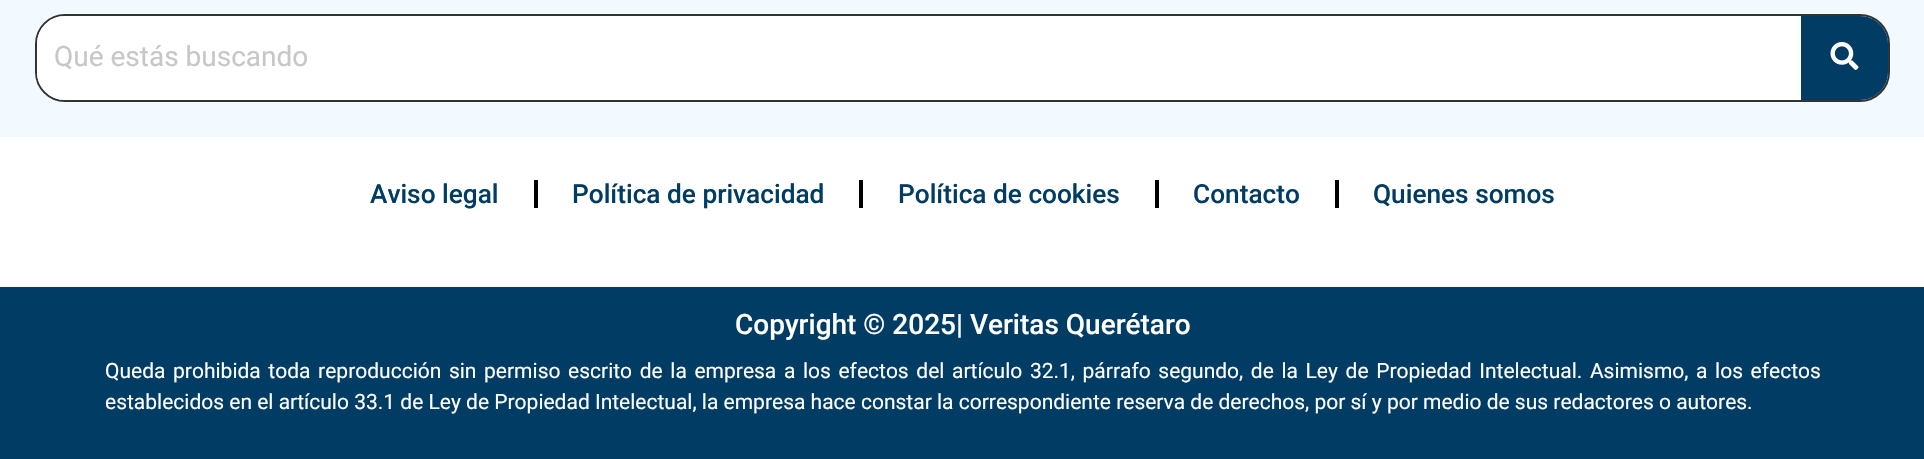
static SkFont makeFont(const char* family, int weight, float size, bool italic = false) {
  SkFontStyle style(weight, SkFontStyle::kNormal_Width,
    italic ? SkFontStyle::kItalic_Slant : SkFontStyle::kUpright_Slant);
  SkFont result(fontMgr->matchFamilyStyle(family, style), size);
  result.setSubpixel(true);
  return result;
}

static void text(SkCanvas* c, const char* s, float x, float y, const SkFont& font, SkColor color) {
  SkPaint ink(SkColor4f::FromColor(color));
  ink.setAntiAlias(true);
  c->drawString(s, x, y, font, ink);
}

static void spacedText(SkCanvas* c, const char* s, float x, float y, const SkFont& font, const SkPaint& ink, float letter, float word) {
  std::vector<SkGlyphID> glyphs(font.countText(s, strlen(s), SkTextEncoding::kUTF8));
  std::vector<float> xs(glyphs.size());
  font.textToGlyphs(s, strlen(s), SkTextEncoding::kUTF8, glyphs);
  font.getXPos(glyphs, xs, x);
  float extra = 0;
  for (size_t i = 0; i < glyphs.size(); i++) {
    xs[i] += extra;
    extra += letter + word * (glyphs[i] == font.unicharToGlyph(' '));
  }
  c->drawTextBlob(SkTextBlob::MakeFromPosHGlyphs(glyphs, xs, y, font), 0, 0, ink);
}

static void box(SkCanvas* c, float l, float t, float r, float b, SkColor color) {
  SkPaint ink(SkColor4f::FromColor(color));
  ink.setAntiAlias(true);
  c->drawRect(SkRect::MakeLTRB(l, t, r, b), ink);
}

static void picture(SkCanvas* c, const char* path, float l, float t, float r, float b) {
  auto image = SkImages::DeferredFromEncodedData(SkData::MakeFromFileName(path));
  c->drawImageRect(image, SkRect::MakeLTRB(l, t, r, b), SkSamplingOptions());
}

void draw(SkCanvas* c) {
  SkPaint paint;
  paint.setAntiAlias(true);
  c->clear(0xffffffff);
  box(c, 0, 0, 1924, 137, 0xfff3faff);
  paint.setStyle(SkPaint::kStroke_Style);
  paint.setStrokeWidth(2);
  paint.setColor(0xff333333);
  c->drawRoundRect(SkRect::MakeLTRB(36, 15, 1889, 101), 29, 29, paint);
  paint.setStyle(SkPaint::kFill_Style);
  paint.setColor(0xffffffff);
  c->drawPath(SkPathBuilder().moveTo(65, 16).lineTo(1801, 16).lineTo(1801, 100).lineTo(65, 100).cubicTo(49.5f, 100, 37, 87.5f, 37, 72).lineTo(37, 44).cubicTo(37, 28.5f, 49.5f, 16, 65, 16).close().detach(), paint);
  SkFont face1 = makeFont("Roboto", 400, 28);
  text(c, "Qué estás buscando", 54, 66, face1, 0xffc7c7c7);
  paint.setColor(0xff003c64);
  c->drawPath(SkPathBuilder().moveTo(1801, 16).lineTo(1860, 16).cubicTo(1875.5f, 16, 1888, 28.5f, 1888, 44).lineTo(1888, 72).cubicTo(1888, 87.5f, 1875.5f, 100, 1860, 100).lineTo(1801, 100).close().detach(), paint);
  picture(c, "img_01.png", 1830, 42, 1859, 70);
  SkFont face2 = makeFont("Roboto", 500, 26.25f);
  text(c, "Aviso legal", 370, 203, face2, 0xff003c64);
  box(c, 534, 180, 538, 208, 0xff000000);
  text(c, "Política de privacidad", 572, 203, face2, 0xff003c64);
  box(c, 859, 180, 863, 208, 0xff000000);
  text(c, "Política de cookies", 898, 203, face2, 0xff003c64);
  box(c, 1155, 180, 1159, 208, 0xff000000);
  text(c, "Contacto", 1193, 203, face2, 0xff003c64);
  box(c, 1335, 180, 1339, 208, 0xff000000);
  text(c, "Quienes somos", 1373, 203, face2, 0xff003c64);
  box(c, 0, 287, 1924, 459, 0xff003c64);
  SkFont face3 = makeFont("Roboto", 500, 28);
  text(c, "Copyright © 2025| Veritas Querétaro", 735, 334, face3, 0xffffffff);
  SkFont face4 = makeFont("Roboto", 400, 21);
  paint.setColor(0xffffffff);
  spacedText(c, "Queda prohibida toda reproducción sin permiso escrito de la empresa a los efectos del artículo 32.1, párrafo segundo, de la Ley de Propiedad Intelectual. Asimismo, a los efectos", 105, 378, face4, paint, 0, 2.4f);
  text(c, "establecidos en el artículo 33.1 de Ley de Propiedad Intelectual, la empresa hace constar la correspondiente reserva de derechos, por sí y por medio de sus redactores o autores.", 105, 409, face4, 0xffffffff);
}
